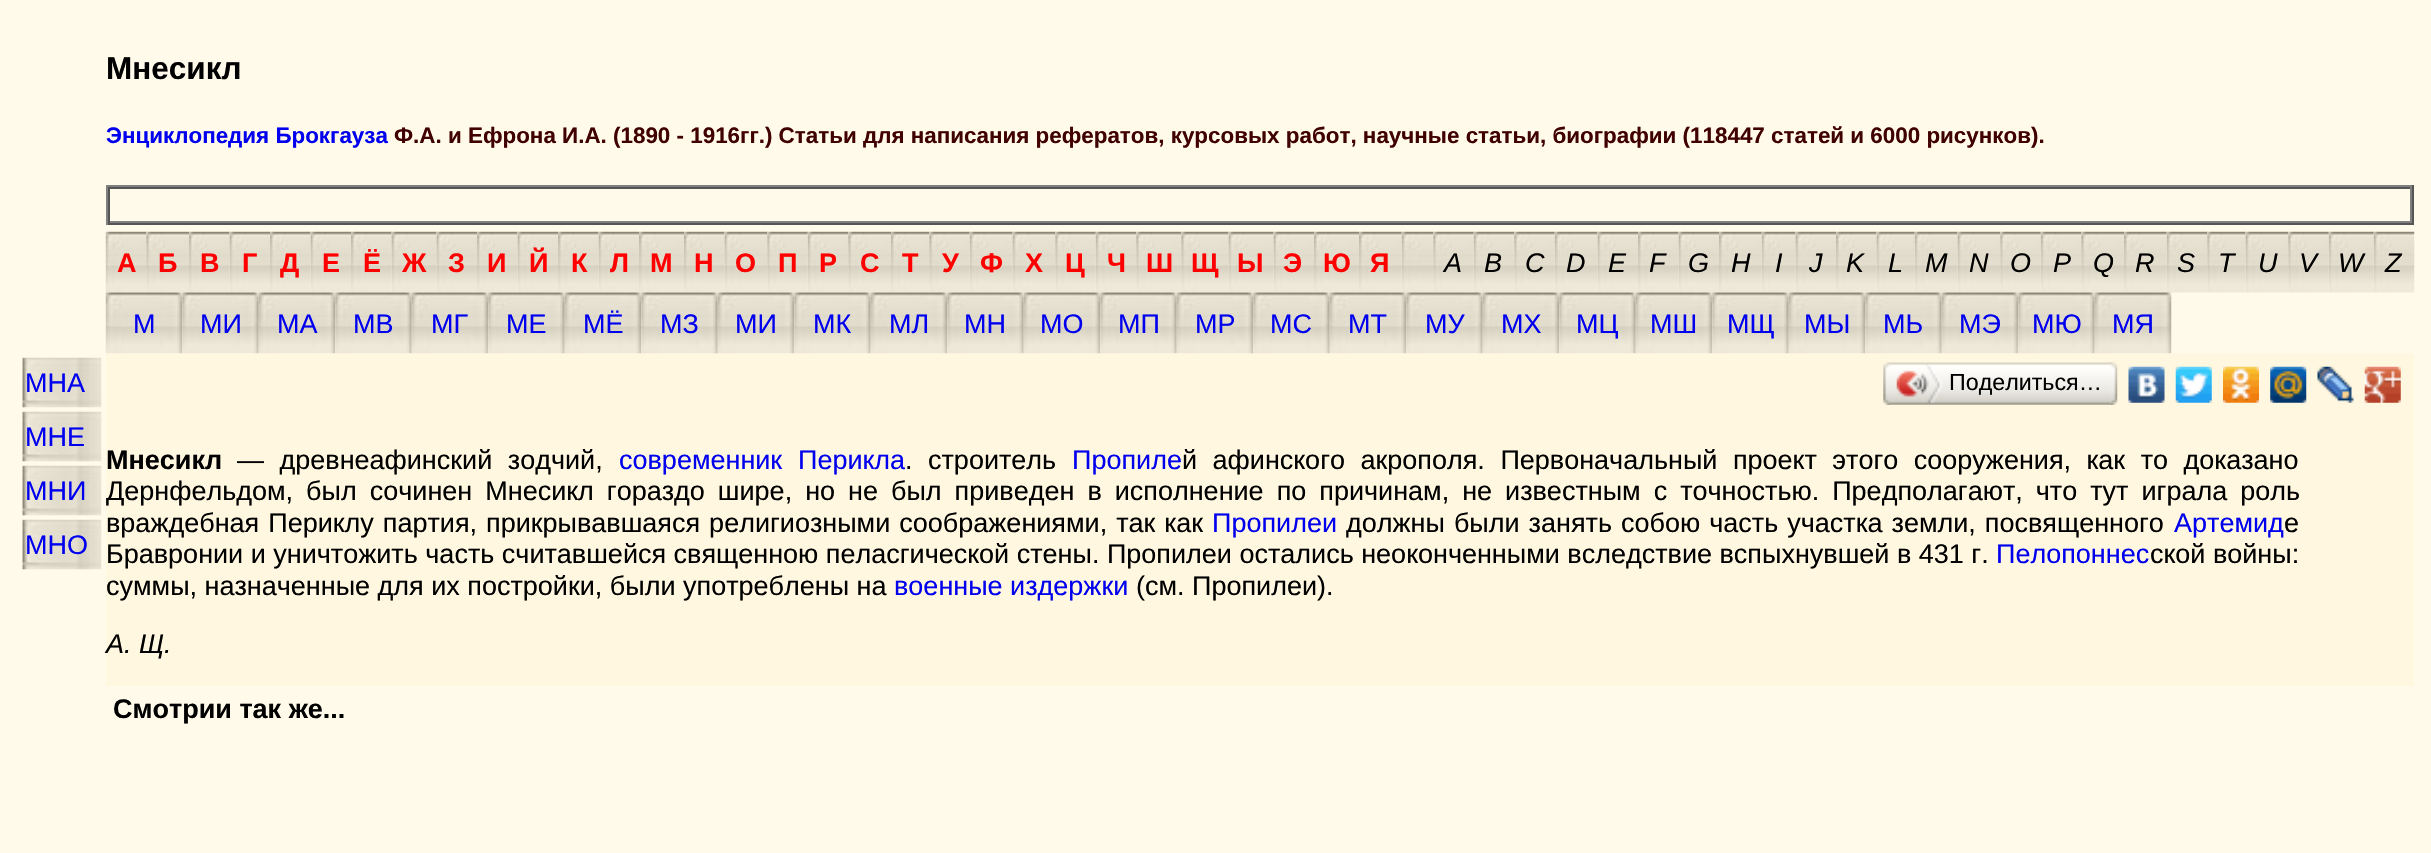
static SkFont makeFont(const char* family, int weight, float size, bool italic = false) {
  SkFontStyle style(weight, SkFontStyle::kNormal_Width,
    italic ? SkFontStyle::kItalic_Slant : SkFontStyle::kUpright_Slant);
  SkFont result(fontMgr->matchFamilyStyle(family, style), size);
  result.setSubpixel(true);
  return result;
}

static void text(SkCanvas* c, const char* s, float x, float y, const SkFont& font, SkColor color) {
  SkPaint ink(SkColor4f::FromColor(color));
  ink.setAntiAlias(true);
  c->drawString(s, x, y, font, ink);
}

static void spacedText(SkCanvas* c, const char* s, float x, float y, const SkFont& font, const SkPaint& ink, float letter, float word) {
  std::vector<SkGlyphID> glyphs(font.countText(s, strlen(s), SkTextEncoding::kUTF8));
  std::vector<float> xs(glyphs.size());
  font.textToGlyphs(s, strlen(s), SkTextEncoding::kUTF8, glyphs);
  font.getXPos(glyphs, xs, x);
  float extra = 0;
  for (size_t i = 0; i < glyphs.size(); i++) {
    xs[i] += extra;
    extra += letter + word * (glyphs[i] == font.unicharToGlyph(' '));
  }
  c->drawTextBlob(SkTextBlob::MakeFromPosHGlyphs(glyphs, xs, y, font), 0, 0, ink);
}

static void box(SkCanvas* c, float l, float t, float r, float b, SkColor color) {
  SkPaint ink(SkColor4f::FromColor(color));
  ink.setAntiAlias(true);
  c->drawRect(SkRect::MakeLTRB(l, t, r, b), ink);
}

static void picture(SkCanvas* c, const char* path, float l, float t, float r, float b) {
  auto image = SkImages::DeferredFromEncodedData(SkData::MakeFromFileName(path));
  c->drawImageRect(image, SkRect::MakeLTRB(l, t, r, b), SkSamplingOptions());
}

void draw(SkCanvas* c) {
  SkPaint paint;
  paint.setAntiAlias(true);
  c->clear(0xfffffaea);
  SkFont face1 = makeFont("Liberation Sans", 700, 31.5f);
  text(c, "Мнесикл", 106, 79, face1, 0xff000000);
  SkFont face2 = makeFont("Liberation Sans", 700, 22.4f);
  text(c, "Энциклопедия Брокгауза", 106, 143, face2, 0xff0000ee);
  text(c, "Ф.А. и Ефрона И.А. (1890 - 1916гг.) Статьи для написания рефератов, курсовых работ, научные статьи, биографии (118447 статей и 6000 рисунков).", 394, 143, face2, 0xff400000);
  box(c, 106, 185, 2414, 187, 0xff808080);
  box(c, 2412, 185, 2414, 225, 0xff555555);
  box(c, 106, 223, 2414, 225, 0xff555555);
  box(c, 106, 185, 108, 225, 0xff808080);
  box(c, 108, 187, 2412, 189, 0xff555555);
  box(c, 2410, 187, 2412, 223, 0xff808080);
  box(c, 108, 221, 2412, 223, 0xff808080);
  box(c, 108, 187, 110, 223, 0xff555555);
  picture(c, "img_01.png", 105, 231, 147, 293);
  SkFont face3 = makeFont("Liberation Sans", 700, 27);
  text(c, "А", 117, 272, face3, 0xffff0000);
  picture(c, "img_02.png", 146, 231, 189, 293);
  text(c, "Б", 158, 272, face3, 0xffff0000);
  picture(c, "img_03.png", 189, 231, 230, 293);
  text(c, "В", 200, 272, face3, 0xffff0000);
  picture(c, "img_04.png", 229, 231, 270, 293);
  text(c, "Г", 242, 272, face3, 0xffff0000);
  picture(c, "img_05.png", 270, 231, 311, 293);
  text(c, "Д", 280, 272, face3, 0xffff0000);
  picture(c, "img_06.png", 310, 231, 351, 293);
  text(c, "Е", 322, 272, face3, 0xffff0000);
  picture(c, "img_07.png", 351, 231, 392, 293);
  text(c, "Ё", 363, 272, face3, 0xffff0000);
  picture(c, "img_08.png", 391, 231, 437, 293);
  text(c, "Ж", 402, 272, face3, 0xffff0000);
  picture(c, "img_09.png", 436, 231, 477, 293);
  text(c, "З", 448, 272, face3, 0xffff0000);
  picture(c, "img_10.png", 477, 231, 518, 293);
  text(c, "И", 487, 272, face3, 0xffff0000);
  picture(c, "img_11.png", 517, 231, 558, 293);
  text(c, "Й", 529, 272, face3, 0xffff0000);
  picture(c, "img_12.png", 558, 231, 599, 293);
  text(c, "К", 571, 272, face3, 0xffff0000);
  picture(c, "img_13.png", 598, 231, 639, 293);
  text(c, "Л", 610, 272, face3, 0xffff0000);
  picture(c, "img_14.png", 639, 231, 684, 293);
  text(c, "М", 650, 272, face3, 0xffff0000);
  picture(c, "img_03.png", 684, 231, 725, 293);
  text(c, "Н", 694, 272, face3, 0xffff0000);
  picture(c, "img_15.png", 724, 231, 768, 293);
  text(c, "О", 735, 272, face3, 0xffff0000);
  picture(c, "img_16.png", 767, 231, 808, 293);
  text(c, "П", 778, 272, face3, 0xffff0000);
  picture(c, "img_17.png", 807, 231, 849, 293);
  text(c, "Р", 819, 272, face3, 0xffff0000);
  picture(c, "img_18.png", 848, 231, 891, 293);
  text(c, "С", 860, 272, face3, 0xffff0000);
  picture(c, "img_19.png", 891, 231, 930, 293);
  text(c, "Т", 902, 272, face3, 0xffff0000);
  picture(c, "img_20.png", 929, 231, 970, 293);
  text(c, "У", 942, 272, face3, 0xffff0000);
  picture(c, "img_21.png", 969, 231, 1013, 293);
  text(c, "Ф", 980, 272, face3, 0xffff0000);
  picture(c, "img_22.png", 1012, 231, 1056, 293);
  text(c, "Х", 1025, 272, face3, 0xffff0000);
  picture(c, "img_23.png", 1055, 231, 1096, 293);
  text(c, "Ц", 1065, 272, face3, 0xffff0000);
  picture(c, "img_24.png", 1095, 231, 1137, 293);
  text(c, "Ч", 1107, 272, face3, 0xffff0000);
  picture(c, "img_25.png", 1136, 231, 1182, 293);
  text(c, "Ш", 1146, 272, face3, 0xffff0000);
  picture(c, "img_26.png", 1181, 231, 1229, 293);
  text(c, "Щ", 1191, 272, face3, 0xffff0000);
  picture(c, "img_27.png", 1228, 231, 1274, 293);
  text(c, "Ы", 1237, 272, face3, 0xffff0000);
  picture(c, "img_11.png", 1273, 231, 1314, 293);
  text(c, "Э", 1283, 272, face3, 0xffff0000);
  picture(c, "img_28.png", 1314, 231, 1359, 293);
  text(c, "Ю", 1323, 272, face3, 0xffff0000);
  picture(c, "img_29.png", 1359, 231, 1402, 293);
  text(c, "Я", 1370, 272, face3, 0xffff0000);
  picture(c, "img_30.png", 1401, 231, 1434, 293);
  picture(c, "img_31.png", 1433, 231, 1474, 293);
  SkFont face4 = makeFont("Liberation Sans", 400, 27, true);
  text(c, "A", 1444, 272, face4, 0xff000000);
  picture(c, "img_17.png", 1473, 231, 1515, 293);
  text(c, "B", 1484, 272, face4, 0xff000000);
  picture(c, "img_32.png", 1514, 231, 1555, 293);
  text(c, "C", 1525, 272, face4, 0xff000000);
  picture(c, "img_33.png", 1554, 231, 1598, 293);
  text(c, "D", 1566, 272, face4, 0xff000000);
  picture(c, "img_06.png", 1597, 231, 1638, 293);
  text(c, "E", 1608, 272, face4, 0xff000000);
  picture(c, "img_34.png", 1638, 231, 1679, 293);
  text(c, "F", 1649, 272, face4, 0xff000000);
  picture(c, "img_35.png", 1678, 231, 1719, 293);
  text(c, "G", 1688, 272, face4, 0xff000000);
  picture(c, "img_36.png", 1719, 231, 1762, 293);
  text(c, "H", 1731, 272, face4, 0xff000000);
  picture(c, "img_37.png", 1761, 231, 1796, 293);
  text(c, "I", 1775, 272, face4, 0xff000000);
  picture(c, "img_38.png", 1795, 231, 1836, 293);
  text(c, "J", 1809, 272, face4, 0xff000000);
  picture(c, "img_39.png", 1836, 231, 1877, 293);
  text(c, "K", 1846, 272, face4, 0xff000000);
  picture(c, "img_40.png", 1876, 231, 1915, 293);
  text(c, "L", 1888, 272, face4, 0xff000000);
  picture(c, "img_41.png", 1914, 231, 1958, 293);
  text(c, "M", 1925, 272, face4, 0xff000000);
  picture(c, "img_42.png", 1957, 231, 2001, 293);
  text(c, "N", 1969, 272, face4, 0xff000000);
  picture(c, "img_43.png", 2000, 231, 2041, 293);
  text(c, "O", 2010, 272, face4, 0xff000000);
  picture(c, "img_17.png", 2040, 231, 2082, 293);
  text(c, "P", 2053, 272, face4, 0xff000000);
  picture(c, "img_44.png", 2081, 231, 2124, 293);
  text(c, "Q", 2093, 272, face4, 0xff000000);
  picture(c, "img_36.png", 2124, 231, 2167, 293);
  text(c, "R", 2135, 272, face4, 0xff000000);
  picture(c, "img_17.png", 2166, 231, 2208, 293);
  text(c, "S", 2177, 272, face4, 0xff000000);
  picture(c, "img_45.png", 2207, 231, 2246, 293);
  text(c, "T", 2218, 272, face4, 0xff000000);
  picture(c, "img_42.png", 2245, 231, 2289, 293);
  text(c, "U", 2258, 272, face4, 0xff000000);
  picture(c, "img_46.png", 2288, 231, 2329, 293);
  text(c, "V", 2299, 272, face4, 0xff000000);
  picture(c, "img_47.png", 2328, 231, 2374, 293);
  text(c, "W", 2338, 272, face4, 0xff000000);
  picture(c, "img_48.png", 2373, 231, 2415, 293);
  text(c, "Z", 2385, 272, face4, 0xff000000);
  box(c, 106, 353, 2414, 686, 0xfffff7df);
  picture(c, "img_49.png", 105, 292, 183, 354);
  SkFont face5 = makeFont("Liberation Sans", 400, 27);
  text(c, "М", 133, 333, face5, 0xff0000ee);
  picture(c, "img_50.png", 182, 292, 259, 354);
  text(c, "МИ", 200, 333, face5, 0xff0000ee);
  picture(c, "img_51.png", 258, 292, 336, 354);
  text(c, "МА", 277, 333, face5, 0xff0000ee);
  picture(c, "img_52.png", 335, 292, 412, 354);
  text(c, "МВ", 353, 333, face5, 0xff0000ee);
  picture(c, "img_53.png", 411, 292, 489, 354);
  text(c, "МГ", 431, 333, face5, 0xff0000ee);
  picture(c, "img_54.png", 488, 292, 565, 354);
  text(c, "МЕ", 506, 333, face5, 0xff0000ee);
  picture(c, "img_55.png", 564, 292, 642, 354);
  text(c, "МЁ", 583, 333, face5, 0xff0000ee);
  picture(c, "img_56.png", 641, 292, 718, 354);
  text(c, "МЗ", 660, 333, face5, 0xff0000ee);
  picture(c, "img_57.png", 717, 292, 795, 354);
  text(c, "МИ", 735, 333, face5, 0xff0000ee);
  picture(c, "img_58.png", 794, 292, 871, 354);
  text(c, "МК", 813, 333, face5, 0xff0000ee);
  picture(c, "img_59.png", 870, 292, 948, 354);
  text(c, "МЛ", 889, 333, face5, 0xff0000ee);
  picture(c, "img_60.png", 947, 292, 1024, 354);
  text(c, "МН", 964, 333, face5, 0xff0000ee);
  picture(c, "img_61.png", 1023, 292, 1101, 354);
  text(c, "МО", 1040, 333, face5, 0xff0000ee);
  picture(c, "img_62.png", 1100, 292, 1177, 354);
  text(c, "МП", 1118, 333, face5, 0xff0000ee);
  picture(c, "img_63.png", 1176, 292, 1254, 354);
  text(c, "МР", 1195, 333, face5, 0xff0000ee);
  picture(c, "img_64.png", 1253, 292, 1330, 354);
  text(c, "МС", 1270, 333, face5, 0xff0000ee);
  picture(c, "img_65.png", 1329, 292, 1407, 354);
  text(c, "МТ", 1348, 333, face5, 0xff0000ee);
  picture(c, "img_66.png", 1406, 292, 1483, 354);
  text(c, "МУ", 1425, 333, face5, 0xff0000ee);
  picture(c, "img_67.png", 1482, 292, 1560, 354);
  text(c, "МХ", 1501, 333, face5, 0xff0000ee);
  picture(c, "img_68.png", 1559, 292, 1636, 354);
  text(c, "МЦ", 1576, 333, face5, 0xff0000ee);
  picture(c, "img_69.png", 1635, 292, 1713, 354);
  text(c, "МШ", 1650, 333, face5, 0xff0000ee);
  picture(c, "img_70.png", 1712, 292, 1789, 354);
  text(c, "МЩ", 1727, 333, face5, 0xff0000ee);
  picture(c, "img_71.png", 1788, 292, 1866, 354);
  text(c, "МЫ", 1804, 333, face5, 0xff0000ee);
  picture(c, "img_72.png", 1865, 292, 1942, 354);
  text(c, "МЬ", 1883, 333, face5, 0xff0000ee);
  picture(c, "img_73.png", 1941, 292, 2019, 354);
  text(c, "МЭ", 1959, 333, face5, 0xff0000ee);
  picture(c, "img_74.png", 2018, 292, 2095, 354);
  text(c, "МЮ", 2032, 333, face5, 0xff0000ee);
  picture(c, "img_75.png", 2094, 292, 2172, 354);
  text(c, "МЯ", 2112, 333, face5, 0xff0000ee);
  picture(c, "img_76.png", 22, 357, 102, 408);
  text(c, "МНА", 25, 392, face5, 0xff0000ee);
  picture(c, "img_77.png", 22, 411, 102, 462);
  text(c, "МНЕ", 25, 446, face5, 0xff0000ee);
  picture(c, "img_78.png", 22, 465, 102, 516);
  text(c, "МНИ", 25, 500, face5, 0xff0000ee);
  picture(c, "img_79.png", 22, 519, 102, 570);
  text(c, "МНО", 25, 554, face5, 0xff0000ee);
  picture(c, "img_80.png", 1890, 362, 2111, 405);
  picture(c, "img_81.png", 1883, 362, 1890, 405);
  picture(c, "img_82.png", 1896, 364, 1942, 403);
  SkFont face6 = makeFont("Liberation Sans", 400, 23.25f);
  text(c, "Поделиться…", 1949, 390, face6, 0xff000000);
  picture(c, "img_83.png", 2110, 362, 2118, 405);
  picture(c, "img_84.png", 2128, 366, 2165, 403);
  picture(c, "img_85.png", 2175, 366, 2212, 403);
  picture(c, "img_86.png", 2223, 366, 2259, 403);
  picture(c, "img_87.png", 2270, 366, 2307, 403);
  picture(c, "img_88.png", 2317, 366, 2354, 403);
  picture(c, "img_89.png", 2364, 366, 2401, 403);
  text(c, "Мнесикл", 106, 469, face3, 0xff000000);
  paint.setColor(0xff000000);
  spacedText(c, "— древнеафинский зодчий,", 237, 469, face5, paint, 0, 8);
  text(c, "современник", 619, 469, face5, 0xff0000ee);
  text(c, "Перикла", 798, 469, face5, 0xff0000ee);
  spacedText(c, ". строитель", 905, 469, face5, paint, 0, 8);
  text(c, "Пропиле", 1072, 469, face5, 0xff0000ee);
  spacedText(c, "й афинского акрополя. Первоначальный проект этого сооружения, как то доказано", 1182, 469, face5, paint, 0, 8);
  spacedText(c, "Дернфельдом, был сочинен Мнесикл гораздо шире, но не был приведен в исполнение по причинам, не известным с точностью. Предполагают, что тут играла роль", 106, 500, face5, paint, 0, 5.5f);
  spacedText(c, "враждебная Периклу партия, прикрывавшаяся религиозными соображениями, так как", 106, 532, face5, paint, 0, 1.5f);
  text(c, "Пропилеи", 1212, 532, face5, 0xff0000ee);
  spacedText(c, "должны были занять собою часть участка земли, посвященного", 1346, 532, face5, paint, 0, 1.5f);
  text(c, "Артемид", 2174, 532, face5, 0xff0000ee);
  text(c, "е", 2284, 532, face5, 0xff000000);
  text(c, "Бравронии и уничтожить часть считавшейся священною пеласгической стены. Пропилеи остались неоконченными вследствие вспыхнувшей в 431 г.", 106, 563, face5, 0xff000000);
  text(c, "Пелопоннес", 1996, 563, face5, 0xff0000ee);
  text(c, "ской войны:", 2150, 563, face5, 0xff000000);
  text(c, "суммы, назначенные для их постройки, были употреблены на", 106, 595, face5, 0xff000000);
  text(c, "военные издержки", 894, 595, face5, 0xff0000ee);
  text(c, "(см. Пропилеи).", 1136, 595, face5, 0xff000000);
  text(c, "А. Щ.", 106, 653, face4, 0xff000000);
  text(c, "Смотрии так же...", 113, 718, face3, 0xff000000);
}
